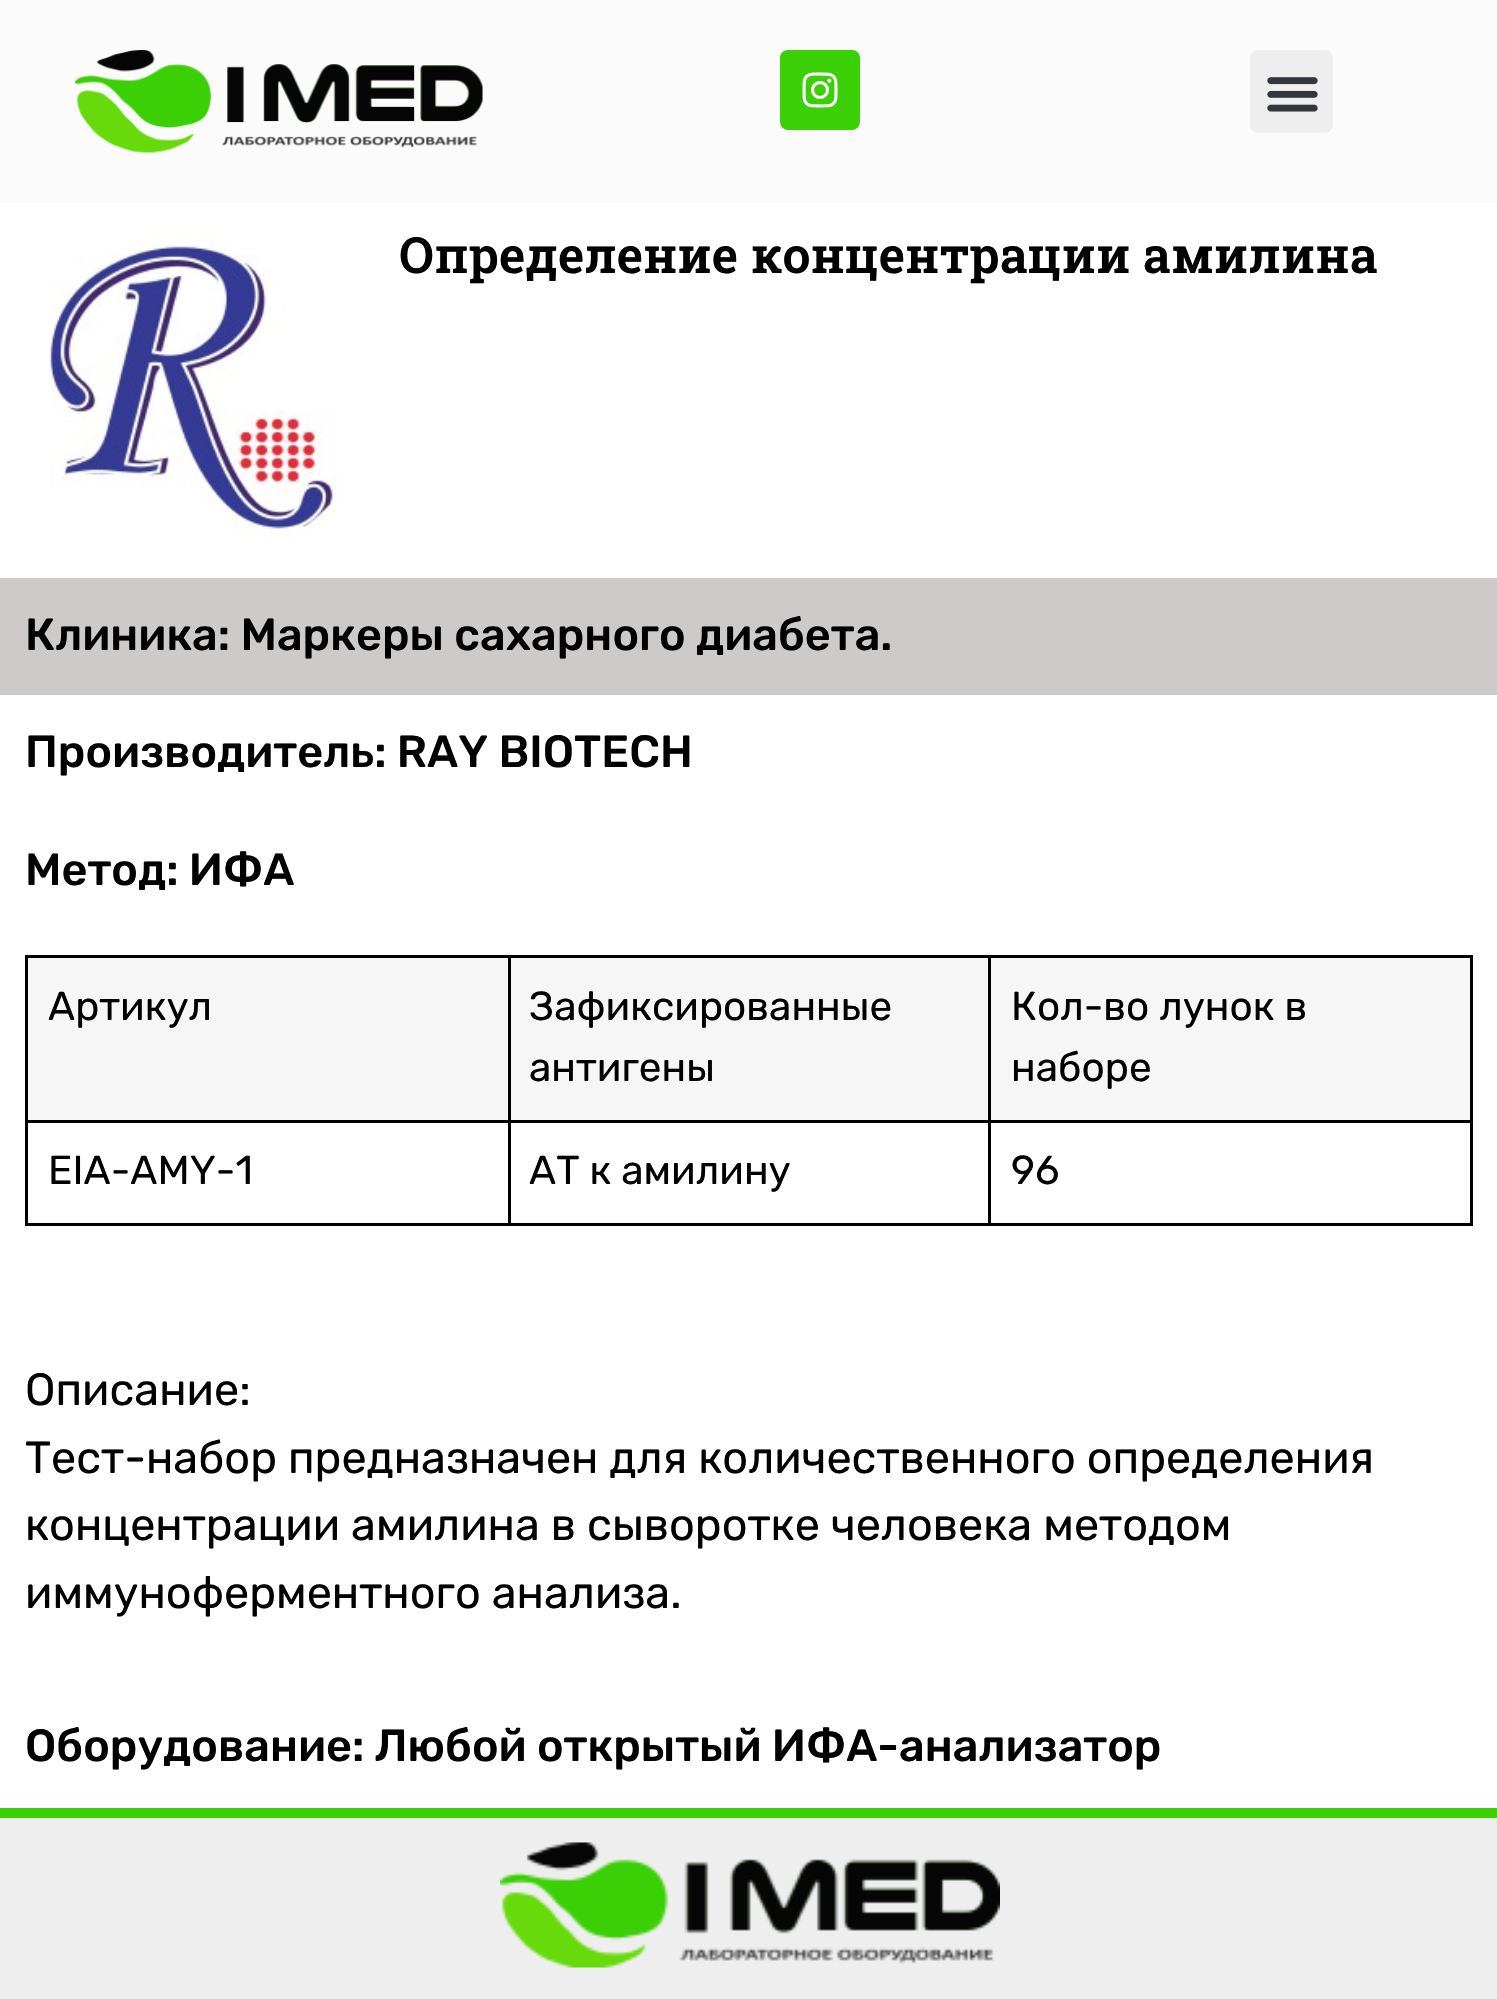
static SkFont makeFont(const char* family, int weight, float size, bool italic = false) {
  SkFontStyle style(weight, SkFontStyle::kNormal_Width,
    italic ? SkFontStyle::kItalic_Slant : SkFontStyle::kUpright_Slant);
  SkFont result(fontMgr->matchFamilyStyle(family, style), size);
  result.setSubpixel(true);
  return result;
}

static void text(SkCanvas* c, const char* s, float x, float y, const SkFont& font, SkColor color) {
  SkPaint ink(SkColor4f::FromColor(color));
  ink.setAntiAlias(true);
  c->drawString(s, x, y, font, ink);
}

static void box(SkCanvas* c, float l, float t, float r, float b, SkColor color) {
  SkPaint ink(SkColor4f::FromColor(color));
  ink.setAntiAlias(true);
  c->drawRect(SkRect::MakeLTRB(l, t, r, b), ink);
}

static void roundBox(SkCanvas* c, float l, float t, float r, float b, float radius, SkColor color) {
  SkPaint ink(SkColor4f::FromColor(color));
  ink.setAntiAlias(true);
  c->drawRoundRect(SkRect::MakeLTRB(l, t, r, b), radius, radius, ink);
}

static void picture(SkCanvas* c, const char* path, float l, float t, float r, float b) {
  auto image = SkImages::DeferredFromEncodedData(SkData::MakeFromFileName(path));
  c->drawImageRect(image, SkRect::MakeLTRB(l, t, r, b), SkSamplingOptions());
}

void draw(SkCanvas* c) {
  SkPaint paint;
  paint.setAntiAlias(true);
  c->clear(0xffffffff);
  box(c, 0, 0, 1497, 203, 0xfffbfbfb);
  picture(c, "img_01.png", 75, 50, 483, 153);
  roundBox(c, 780, 50, 860, 130, 8, 0xff3bcf06);
  picture(c, "img_02.png", 802, 72, 838, 108);
  roundBox(c, 1250, 50, 1333, 133, 8, 0xffeeeeee);
  picture(c, "img_03.png", 1267, 77, 1318, 112);
  picture(c, "img_04.png", 50, 233, 337, 539);
  SkFont face1 = makeFont("Roboto Slab", 600, 50);
  text(c, "Определение концентрации амилина", 399, 273, face1, 0xff000000);
  box(c, 0, 578, 1497, 695, 0xffcfcaca);
  SkFont face2 = makeFont("Rubik", 500, 45);
  text(c, "Клиника: Маркеры сахарного диабета.", 25, 650, face2, 0xff000000);
  text(c, "Производитель: RAY BIOTECH", 25, 767, face2, 0xff000000);
  text(c, "Метод: ИФА", 25, 885, face2, 0xff000000);
  box(c, 28, 958, 508, 1120, 0xfff6f6f6);
  box(c, 988, 955, 1473, 958, 0xff000000);
  box(c, 988, 1120, 1473, 1123, 0xff000000);
  box(c, 1470, 1120, 1473, 1225, 0xff000000);
  box(c, 988, 1223, 1473, 1226, 0xff000000);
  box(c, 988, 1120, 991, 1225, 0xff000000);
  box(c, 508, 1120, 990, 1123, 0xff000000);
  box(c, 988, 955, 991, 1123, 0xff000000);
  box(c, 508, 955, 990, 958, 0xff000000);
  box(c, 508, 1223, 990, 1226, 0xff000000);
  box(c, 508, 1120, 511, 1225, 0xff000000);
  box(c, 25, 1120, 510, 1123, 0xff000000);
  box(c, 508, 955, 511, 1123, 0xff000000);
  box(c, 25, 955, 510, 958, 0xff000000);
  box(c, 25, 1223, 510, 1226, 0xff000000);
  box(c, 25, 1120, 28, 1225, 0xff000000);
  box(c, 25, 955, 28, 1123, 0xff000000);
  SkFont face3 = makeFont("Rubik", 400, 40.5f);
  text(c, "Артикул", 48, 1020, face3, 0xff000000);
  box(c, 511, 958, 988, 1120, 0xfff6f6f6);
  text(c, "Зафиксированные", 529, 1020, face3, 0xff000000);
  text(c, "антигены", 529, 1081, face3, 0xff000000);
  box(c, 991, 958, 1470, 1120, 0xfff6f6f6);
  box(c, 1470, 955, 1473, 1123, 0xff000000);
  text(c, "Кол-во лунок в", 1011, 1020, face3, 0xff000000);
  text(c, "наборе", 1011, 1081, face3, 0xff000000);
  text(c, "EIA-AMY-1", 48, 1184, face3, 0xff000000);
  text(c, "АТ к амилину", 529, 1184, face3, 0xff000000);
  text(c, "96", 1011, 1184, face3, 0xff000000);
  SkFont face4 = makeFont("Rubik", 400, 45);
  text(c, "Описание:", 25, 1405, face4, 0xff000000);
  text(c, "Тест-набор предназначен для количественного определения", 25, 1473, face4, 0xff000000);
  text(c, "концентрации амилина в сыворотке человека методом", 25, 1540, face4, 0xff000000);
  text(c, "иммуноферментного анализа.", 25, 1608, face4, 0xff000000);
  text(c, "Оборудование: Любой открытый ИФА-анализатор", 25, 1761, face2, 0xff000000);
  box(c, 0, 1818, 1497, 1999, 0xffeeeeee);
  box(c, 0, 1808, 1497, 1818, 0xff3bcf06);
  picture(c, "img_05.png", 500, 1842, 1000, 1968);
}
